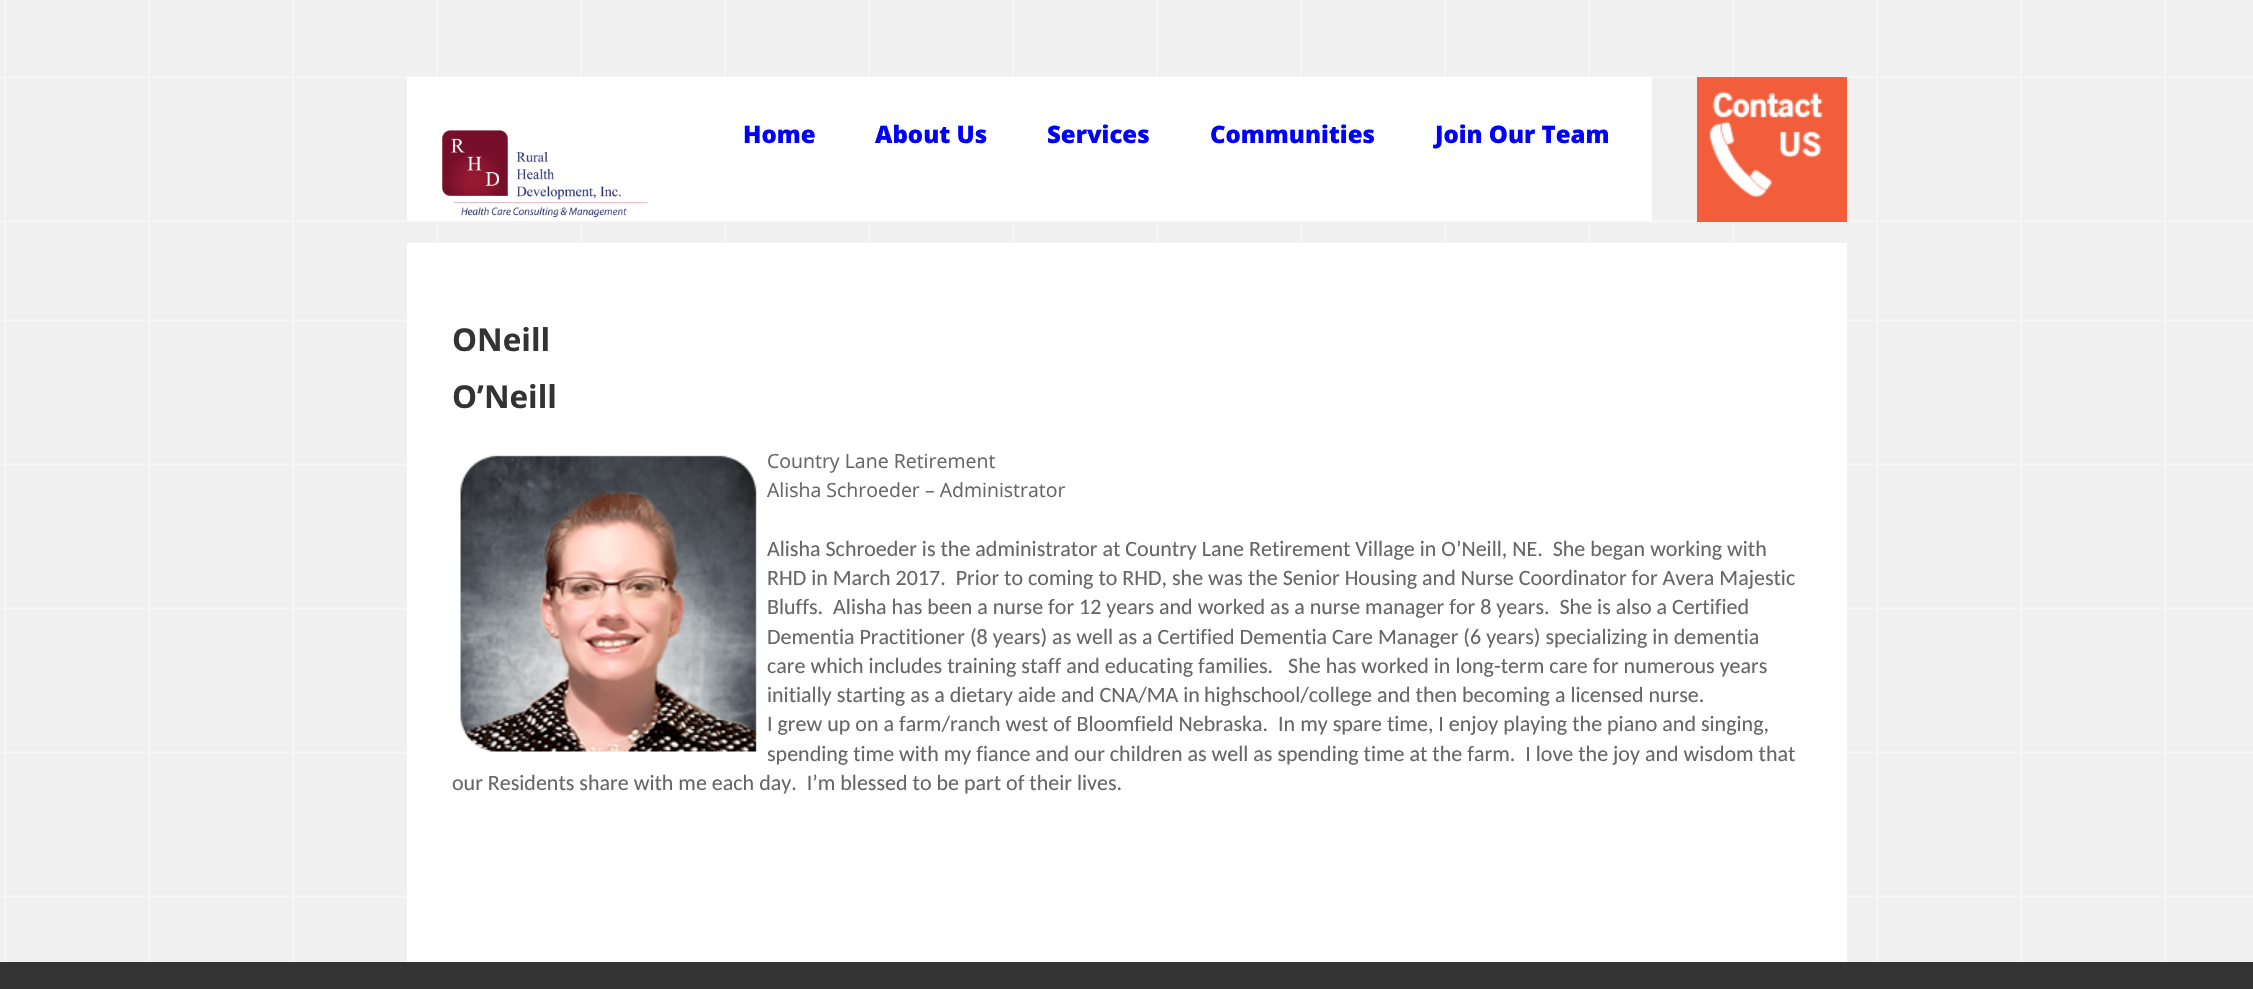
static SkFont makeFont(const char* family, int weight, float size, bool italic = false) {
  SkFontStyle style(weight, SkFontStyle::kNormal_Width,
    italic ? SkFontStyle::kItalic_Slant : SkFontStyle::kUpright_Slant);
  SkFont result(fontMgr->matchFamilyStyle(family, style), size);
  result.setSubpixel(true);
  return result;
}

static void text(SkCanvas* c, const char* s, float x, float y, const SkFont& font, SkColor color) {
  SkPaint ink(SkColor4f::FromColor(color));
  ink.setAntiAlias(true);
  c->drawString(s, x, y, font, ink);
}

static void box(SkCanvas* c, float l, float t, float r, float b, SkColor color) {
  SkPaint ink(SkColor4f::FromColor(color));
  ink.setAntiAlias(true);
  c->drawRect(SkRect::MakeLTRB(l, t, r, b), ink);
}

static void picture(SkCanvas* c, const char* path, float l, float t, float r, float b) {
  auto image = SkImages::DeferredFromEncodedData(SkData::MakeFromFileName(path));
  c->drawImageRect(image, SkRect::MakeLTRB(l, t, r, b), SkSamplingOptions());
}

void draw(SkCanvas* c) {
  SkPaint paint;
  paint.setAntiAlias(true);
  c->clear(0xffffffff);
  picture(c, "img_01.png", 0, 0, 2253, 243);
  box(c, 407, 77, 1652, 221, 0xffffffff);
  picture(c, "img_02.png", 442, 130, 648, 218);
  SkFont face1 = makeFont("Open Sans", 800, 24);
  text(c, "Home", 743, 143, face1, 0xff0000ff);
  text(c, "About Us", 875, 143, face1, 0xff0000ff);
  text(c, "Services", 1047, 143, face1, 0xff0000ff);
  text(c, "Communities", 1210, 143, face1, 0xff0000ff);
  text(c, "Join Our Team", 1435, 143, face1, 0xff0000ff);
  box(c, 1697, 77, 1847, 222, 0xfff25d3c);
  picture(c, "img_03.png", 1709, 91, 1823, 197);
  picture(c, "img_04.png", 0, 243, 2253, 962);
  box(c, 407, 243, 1847, 962, 0xffffffff);
  SkFont face2 = makeFont("Open Sans", 700, 31.5f);
  text(c, "ONeill", 452, 351, face2, 0xff333333);
  text(c, "O’Neill", 452, 408, face2, 0xff333333);
  picture(c, "img_05.png", 460, 455, 757, 752);
  SkFont face3 = makeFont("Open Sans", 400, 19.5f);
  text(c, "Country Lane Retirement", 767, 468, face3, 0xff666666);
  text(c, "Alisha Schroeder – Administrator", 767, 497, face3, 0xff666666);
  SkFont face4 = makeFont("Carlito", 400, 22);
  text(c, "Alisha Schroeder is the administrator at Country Lane Retirement Village in O’Neill, NE.  She began working with", 767, 556, face4, 0xff666666);
  text(c, "RHD in March 2017.  Prior to coming to RHD, she was the Senior Housing and Nurse Coordinator for Avera Majestic", 767, 585, face4, 0xff666666);
  text(c, "Bluffs.  Alisha has been a nurse for 12 years and worked as a nurse manager for 8 years.  She is also a Certified", 767, 614, face4, 0xff666666);
  text(c, "Dementia Practitioner (8 years) as well as a Certified Dementia Care Manager (6 years) specializing in dementia", 767, 644, face4, 0xff666666);
  text(c, "care which includes training staff and educating families.   She has worked in long-term care for numerous years", 767, 673, face4, 0xff666666);
  text(c, "initially starting as a dietary aide and CNA/MA in", 767, 702, face4, 0xff666666);
  text(c, "highschool/college and then becoming a licensed nurse.", 1204, 702, face4, 0xff666666);
  text(c, "I grew up on a farm/ranch west of Bloomfield Nebraska.  In my spare time, I enjoy playing the piano and singing,", 767, 731, face4, 0xff666666);
  text(c, "spending time with my fiance and our children as well as spending time at the farm.  I love the joy and wisdom that", 767, 761, face4, 0xff666666);
  text(c, "our Residents share with me each day.  I’m blessed to be part of their lives.", 452, 790, face4, 0xff666666);
  box(c, 0, 962, 2253, 989, 0xff333333);
}
